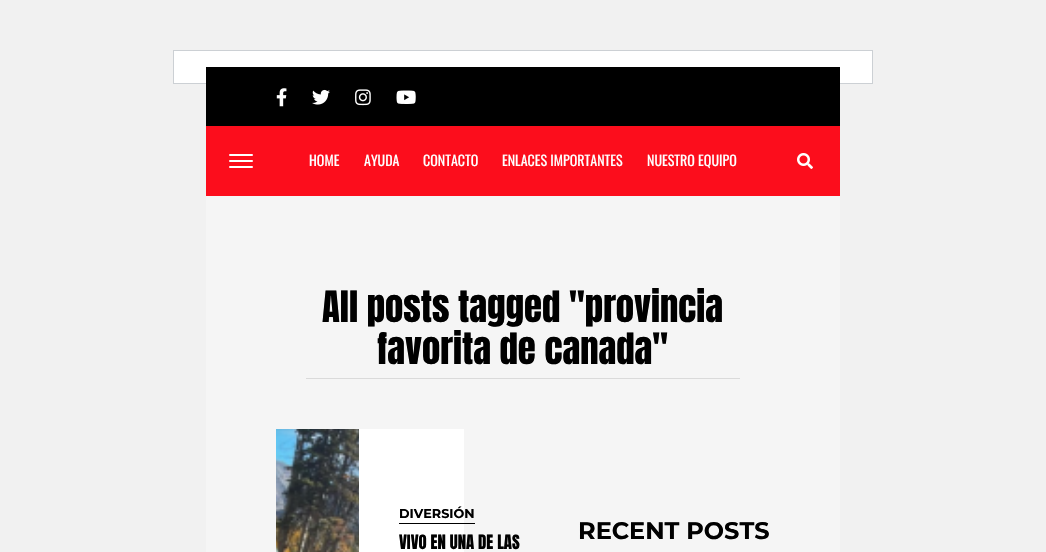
static SkFont makeFont(const char* family, int weight, float size, bool italic = false) {
  SkFontStyle style(weight, SkFontStyle::kNormal_Width,
    italic ? SkFontStyle::kItalic_Slant : SkFontStyle::kUpright_Slant);
  SkFont result(fontMgr->matchFamilyStyle(family, style), size);
  result.setSubpixel(true);
  return result;
}

static void text(SkCanvas* c, const char* s, float x, float y, const SkFont& font, SkColor color) {
  SkPaint ink(SkColor4f::FromColor(color));
  ink.setAntiAlias(true);
  c->drawString(s, x, y, font, ink);
}

static void box(SkCanvas* c, float l, float t, float r, float b, SkColor color) {
  SkPaint ink(SkColor4f::FromColor(color));
  ink.setAntiAlias(true);
  c->drawRect(SkRect::MakeLTRB(l, t, r, b), ink);
}

static void roundBox(SkCanvas* c, float l, float t, float r, float b, float radius, SkColor color) {
  SkPaint ink(SkColor4f::FromColor(color));
  ink.setAntiAlias(true);
  c->drawRoundRect(SkRect::MakeLTRB(l, t, r, b), radius, radius, ink);
}

static void picture(SkCanvas* c, const char* path, float l, float t, float r, float b) {
  auto image = SkImages::DeferredFromEncodedData(SkData::MakeFromFileName(path));
  c->drawImageRect(image, SkRect::MakeLTRB(l, t, r, b), SkSamplingOptions());
}

void draw(SkCanvas* c) {
  SkPaint paint;
  paint.setAntiAlias(true);
  c->clear(0xfff1f1f1);
  paint.setColor(0xffffffff);
  c->drawRect(SkRect::MakeLTRB(173.5f, 50.5f, 872.5f, 83.5f), paint);
  paint.setStyle(SkPaint::kStroke_Style);
  paint.setStrokeWidth(1);
  paint.setColor(0xffccd0d4);
  c->drawRect(SkRect::MakeLTRB(173.5f, 50.5f, 872.5f, 83.5f), paint);
  box(c, 206, 67, 840, 126, 0xff000000);
  picture(c, "img_01.png", 276, 88, 287, 107);
  picture(c, "img_02.png", 312, 89, 330, 105);
  picture(c, "img_03.png", 355, 89, 371, 106);
  picture(c, "img_04.png", 396, 90, 416, 104);
  box(c, 206, 126, 840, 196, 0xfffc0d1c);
  roundBox(c, 229, 154, 253, 156, 1, 0xffffffff);
  roundBox(c, 229, 160, 253, 162, 1, 0xffffffff);
  roundBox(c, 229, 166, 253, 168, 1, 0xffffffff);
  SkFont face1 = makeFont("Oswald", 400, 14);
  text(c, "HOME", 309, 166, face1, 0xffffffff);
  text(c, "AYUDA", 364, 166, face1, 0xffffffff);
  text(c, "CONTACTO", 423, 166, face1, 0xffffffff);
  text(c, "ENLACES IMPORTANTES", 502, 166, face1, 0xffffffff);
  text(c, "NUESTRO EQUIPO", 647, 166, face1, 0xffffffff);
  picture(c, "img_05.png", 797, 153, 813, 169);
  box(c, 206, 196, 840, 552, 0xfff5f5f5);
  box(c, 306, 378, 740, 379, 0xffdadada);
  SkFont face2 = makeFont("Anton", 400, 36.75f);
  text(c, "All posts tagged \"provincia", 322, 322, face2, 0xff000000);
  text(c, "favorita de canada\"", 377, 364, face2, 0xff000000);
  box(c, 359, 429, 464, 552, 0xffffffff);
  picture(c, "img_06.png", 276, 429, 359, 552);
  box(c, 399, 523, 475, 524, 0xff000000);
  SkFont face3 = makeFont("Montserrat", 700, 12.75f);
  text(c, "DIVERSIÓN", 399, 518, face3, 0xff000000);
  SkFont face4 = makeFont("Anton", 400, 16.75f);
  text(c, "VIVO EN UNA DE LAS", 399, 549, face4, 0xff000000);
  SkFont face5 = makeFont("Montserrat", 700, 24);
  text(c, "RECENT POSTS", 578, 539, face5, 0xff000000);
}
